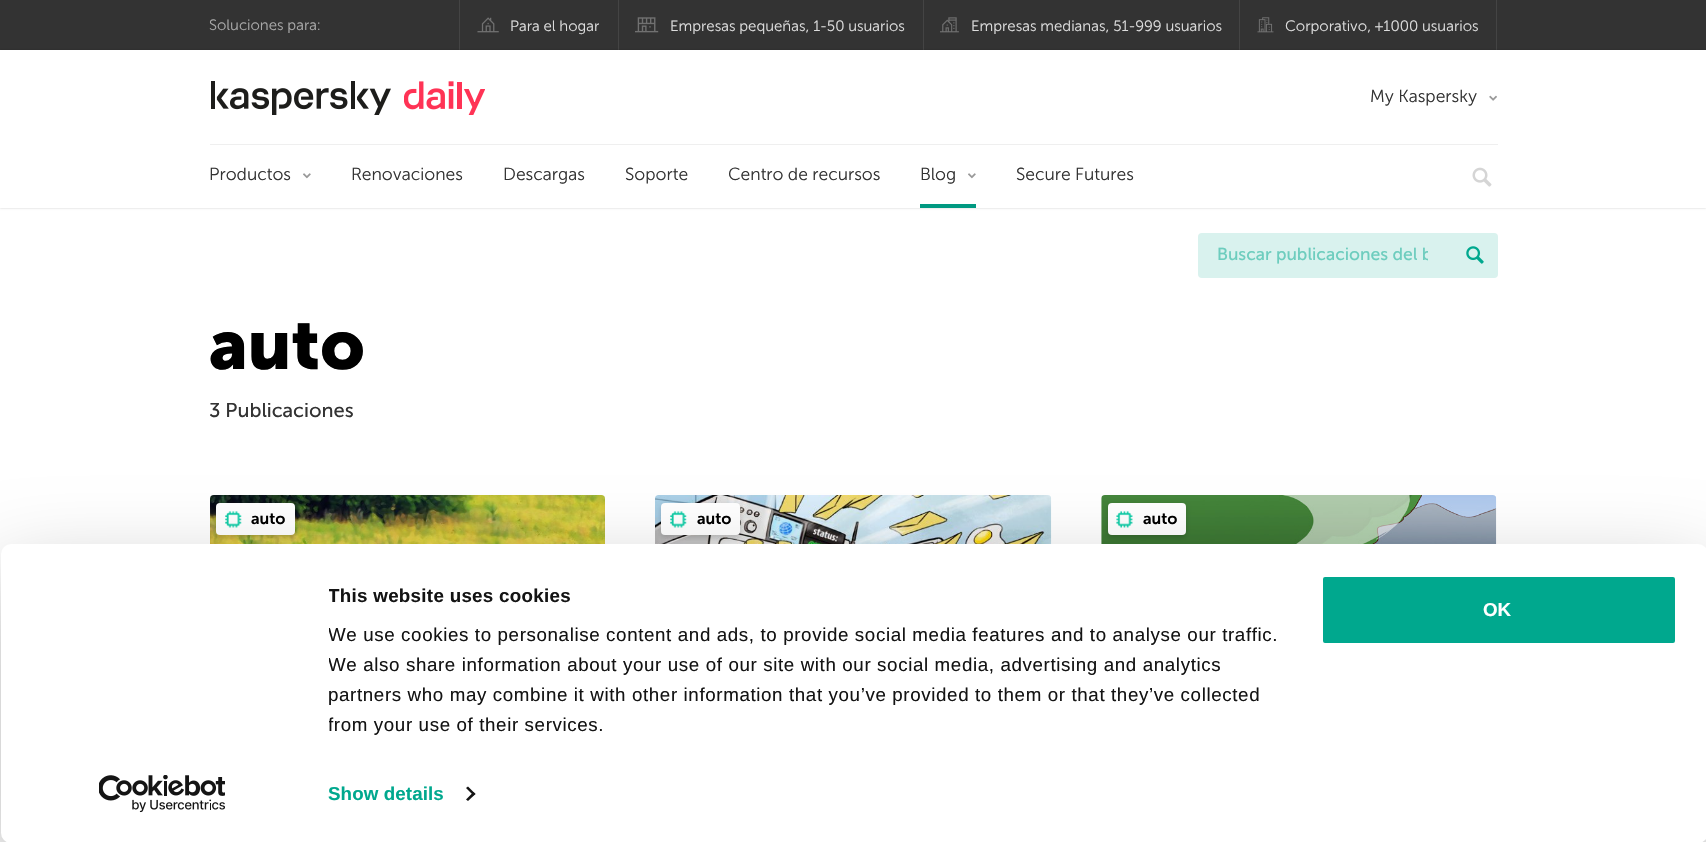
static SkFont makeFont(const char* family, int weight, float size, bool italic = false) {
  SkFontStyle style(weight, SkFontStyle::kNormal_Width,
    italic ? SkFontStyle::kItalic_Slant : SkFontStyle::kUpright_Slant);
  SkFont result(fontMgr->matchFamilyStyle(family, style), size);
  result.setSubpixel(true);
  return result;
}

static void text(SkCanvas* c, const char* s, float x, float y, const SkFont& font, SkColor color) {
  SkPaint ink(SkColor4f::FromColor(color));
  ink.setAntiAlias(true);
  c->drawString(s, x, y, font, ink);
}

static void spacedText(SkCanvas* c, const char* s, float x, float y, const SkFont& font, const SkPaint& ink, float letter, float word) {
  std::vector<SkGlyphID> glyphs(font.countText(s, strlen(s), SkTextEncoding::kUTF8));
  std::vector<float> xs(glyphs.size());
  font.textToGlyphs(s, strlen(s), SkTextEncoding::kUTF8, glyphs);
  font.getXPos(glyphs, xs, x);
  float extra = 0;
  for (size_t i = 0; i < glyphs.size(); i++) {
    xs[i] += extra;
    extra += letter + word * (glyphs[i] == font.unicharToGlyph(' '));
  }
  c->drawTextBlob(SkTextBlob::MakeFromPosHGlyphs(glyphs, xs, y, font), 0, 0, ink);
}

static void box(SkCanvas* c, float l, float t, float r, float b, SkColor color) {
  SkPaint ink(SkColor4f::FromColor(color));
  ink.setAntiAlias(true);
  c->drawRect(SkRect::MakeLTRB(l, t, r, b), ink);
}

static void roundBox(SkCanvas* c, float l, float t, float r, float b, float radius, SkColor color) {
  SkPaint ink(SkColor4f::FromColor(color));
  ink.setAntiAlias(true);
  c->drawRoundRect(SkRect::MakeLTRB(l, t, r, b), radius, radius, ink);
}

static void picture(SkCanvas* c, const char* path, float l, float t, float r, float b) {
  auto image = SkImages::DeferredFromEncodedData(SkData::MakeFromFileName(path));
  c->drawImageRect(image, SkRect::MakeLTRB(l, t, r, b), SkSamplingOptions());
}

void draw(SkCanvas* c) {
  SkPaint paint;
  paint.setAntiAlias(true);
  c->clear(0xffffffff);
  box(c, 0, 0, 1706, 50, 0xff333333);
  SkFont face1 = makeFont("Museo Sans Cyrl", 300, 15);
  text(c, "Soluciones para:", 209, 30, face1, 0xffa9a9a9);
  box(c, 618, 0, 619, 50, 0xff444444);
  box(c, 459, 0, 460, 50, 0xff444444);
  picture(c, "img_01.png", 477, 17, 499, 33);
  text(c, "Para el hogar", 510, 31, face1, 0xffdddddd);
  box(c, 923, 0, 924, 50, 0xff444444);
  picture(c, "img_02.png", 635, 17, 659, 33);
  text(c, "Empresas pequeñas, 1-50 usuarios", 670, 31, face1, 0xffdddddd);
  box(c, 1239, 0, 1240, 50, 0xff444444);
  picture(c, "img_03.png", 940, 17, 959, 33);
  text(c, "Empresas medianas, 51-999 usuarios", 971, 31, face1, 0xffdddddd);
  box(c, 1496, 0, 1497, 50, 0xff444444);
  picture(c, "img_04.png", 1257, 17, 1274, 33);
  text(c, "Corporativo, +1000 usuarios", 1285, 31, face1, 0xffdddddd);
  paint.setColor(0x33000000);
  paint.setMaskFilter(SkMaskFilter::MakeBlur(kNormal_SkBlurStyle, 1));
  c->drawRect(SkRect::MakeLTRB(0, 50, 1706, 208), paint);
  paint.setMaskFilter(nullptr);
  box(c, 0, 50, 1706, 208, 0xffffffff);
  picture(c, "img_05.png", 211, 81, 391, 115);
  picture(c, "img_06.png", 404, 81, 485, 115);
  SkFont face2 = makeFont("Museo Sans Cyrl", 300, 17.5f);
  text(c, "My Kaspersky", 1370, 102, face2, 0xff333333);
  picture(c, "img_07.png", 1489, 95, 1497, 101);
  box(c, 210, 144, 1498, 145, 0xffefefef);
  text(c, "Productos", 209, 180, face2, 0xff333333);
  picture(c, "img_08.png", 303, 173, 311, 179);
  text(c, "Renovaciones", 351, 180, face2, 0xff333333);
  text(c, "Descargas", 503, 180, face2, 0xff333333);
  text(c, "Soporte", 625, 180, face2, 0xff333333);
  text(c, "Centro de recursos", 728, 180, face2, 0xff333333);
  box(c, 920, 204, 976, 208, 0xff009981);
  text(c, "Blog", 920, 180, face2, 0xff333333);
  picture(c, "img_08.png", 968, 173, 976, 179);
  text(c, "Secure Futures", 1016, 180, face2, 0xff333333);
  picture(c, "img_09.png", 1472, 167, 1492, 187);
  roundBox(c, 1198, 233, 1498, 278, 4, 0xffd9f2ee);
  c->save();
  c->clipRect(SkRect::MakeLTRB(1218, 244, 1428, 265));
  SkFont face3 = makeFont("Museo Sans Cyrl", 400, 17.5f);
  text(c, "Buscar publicaciones del b", 1217, 260, face3, 0xff6dcdbe);
  c->restore();
  picture(c, "img_10.png", 1466, 246, 1484, 264);
  SkFont face4 = makeFont("Museo Sans Cyrl", 700, 70);
  text(c, "auto", 209, 369, face4, 0xff000000);
  SkFont face5 = makeFont("Museo Sans Cyrl", 400, 20);
  text(c, "3 Publicaciones", 209, 417, face5, 0xff333333);
  picture(c, "img_11.png", 210, 495, 605, 544);
  paint.setColor(0x26000000);
  paint.setMaskFilter(SkMaskFilter::MakeBlur(kNormal_SkBlurStyle, 2.5f));
  c->drawRoundRect(SkRect::MakeLTRB(216, 505, 295, 538), 4, 4, paint);
  paint.setMaskFilter(nullptr);
  roundBox(c, 216, 503, 295, 535, 4, 0xffffffff);
  picture(c, "img_12.png", 225, 511, 242, 528);
  SkFont face6 = makeFont("Museo Sans Cyrl", 600, 16);
  text(c, "auto", 251, 524, face6, 0xff000000);
  picture(c, "img_13.png", 655, 495, 1052, 544);
  paint.setMaskFilter(SkMaskFilter::MakeBlur(kNormal_SkBlurStyle, 2.5f));
  c->drawRoundRect(SkRect::MakeLTRB(661, 505, 740, 538), 4, 4, paint);
  paint.setMaskFilter(nullptr);
  roundBox(c, 661, 503, 740, 535, 4, 0xffffffff);
  picture(c, "img_12.png", 670, 511, 687, 528);
  text(c, "auto", 697, 524, face6, 0xff000000);
  picture(c, "img_14.png", 1101, 495, 1497, 544);
  paint.setMaskFilter(SkMaskFilter::MakeBlur(kNormal_SkBlurStyle, 2.5f));
  c->drawRoundRect(SkRect::MakeLTRB(1108, 505, 1186, 538), 4, 4, paint);
  paint.setMaskFilter(nullptr);
  roundBox(c, 1108, 503, 1186, 535, 4, 0xffffffff);
  picture(c, "img_15.png", 1116, 511, 1133, 528);
  text(c, "auto", 1143, 524, face6, 0xff000000);
  paint.setColor(0x4d000000);
  paint.setMaskFilter(SkMaskFilter::MakeBlur(kNormal_SkBlurStyle, 44));
  c->drawRoundRect(SkRect::MakeLTRB(1, 581, 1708, 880), 10, 10, paint);
  paint.setMaskFilter(nullptr);
  roundBox(c, 1, 544, 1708, 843, 10, 0xffffffff);
  c->save();
  c->clipRect(SkRect::MakeLTRB(329, 581, 1313, 740));
  SkFont face7 = makeFont("Liberation Sans", 700, 18.75f);
  paint.setColor(0xff141414);
  spacedText(c, "This website uses cookies", 328, 602, face7, paint, 0.3f, 0);
  SkFont face8 = makeFont("Liberation Sans", 400, 18.75f);
  spacedText(c, "We use cookies to personalise content and ads, to provide social media features and to analyse our traffic.", 328, 641, face8, paint, 0.62f, 0);
  spacedText(c, "We also share information about your use of our site with our social media, advertising and analytics", 328, 671, face8, paint, 0.62f, 0);
  spacedText(c, "partners who may combine it with other information that you’ve provided to them or that they’ve collected", 328, 701, face8, paint, 0.62f, 0);
  spacedText(c, "from your use of their services.", 328, 731, face8, paint, 0.62f, 0);
  c->restore();
  paint.setColor(0xff00a88e);
  spacedText(c, "Show details", 328, 800, face7, paint, 0.1f, 0);
  paint.setColor(0xff141414);
  c->drawPath(SkPathBuilder().moveTo(468, 786.5f).lineTo(475.5f, 794).lineTo(473.5f, 795.5f).lineTo(466, 788).close().detach(), paint);
  c->drawPath(SkPathBuilder().moveTo(473.5f, 792).lineTo(475.5f, 794).lineTo(468, 801).lineTo(466, 799.5f).close().detach(), paint);
  paint.setColor(0xff00a88e);
  c->drawRoundRect(SkRect::MakeLTRB(1321.5f, 575.5f, 1676.5f, 644.5f), 3.5f, 3.5f, paint);
  paint.setStyle(SkPaint::kStroke_Style);
  paint.setStrokeWidth(3);
  paint.setColor(0xffffffff);
  c->drawRoundRect(SkRect::MakeLTRB(1321.5f, 575.5f, 1676.5f, 644.5f), 3.5f, 3.5f, paint);
  text(c, "OK", 1483, 616, face7, 0xffffffff);
  picture(c, "img_16.png", 99, 775, 225, 813);
}
